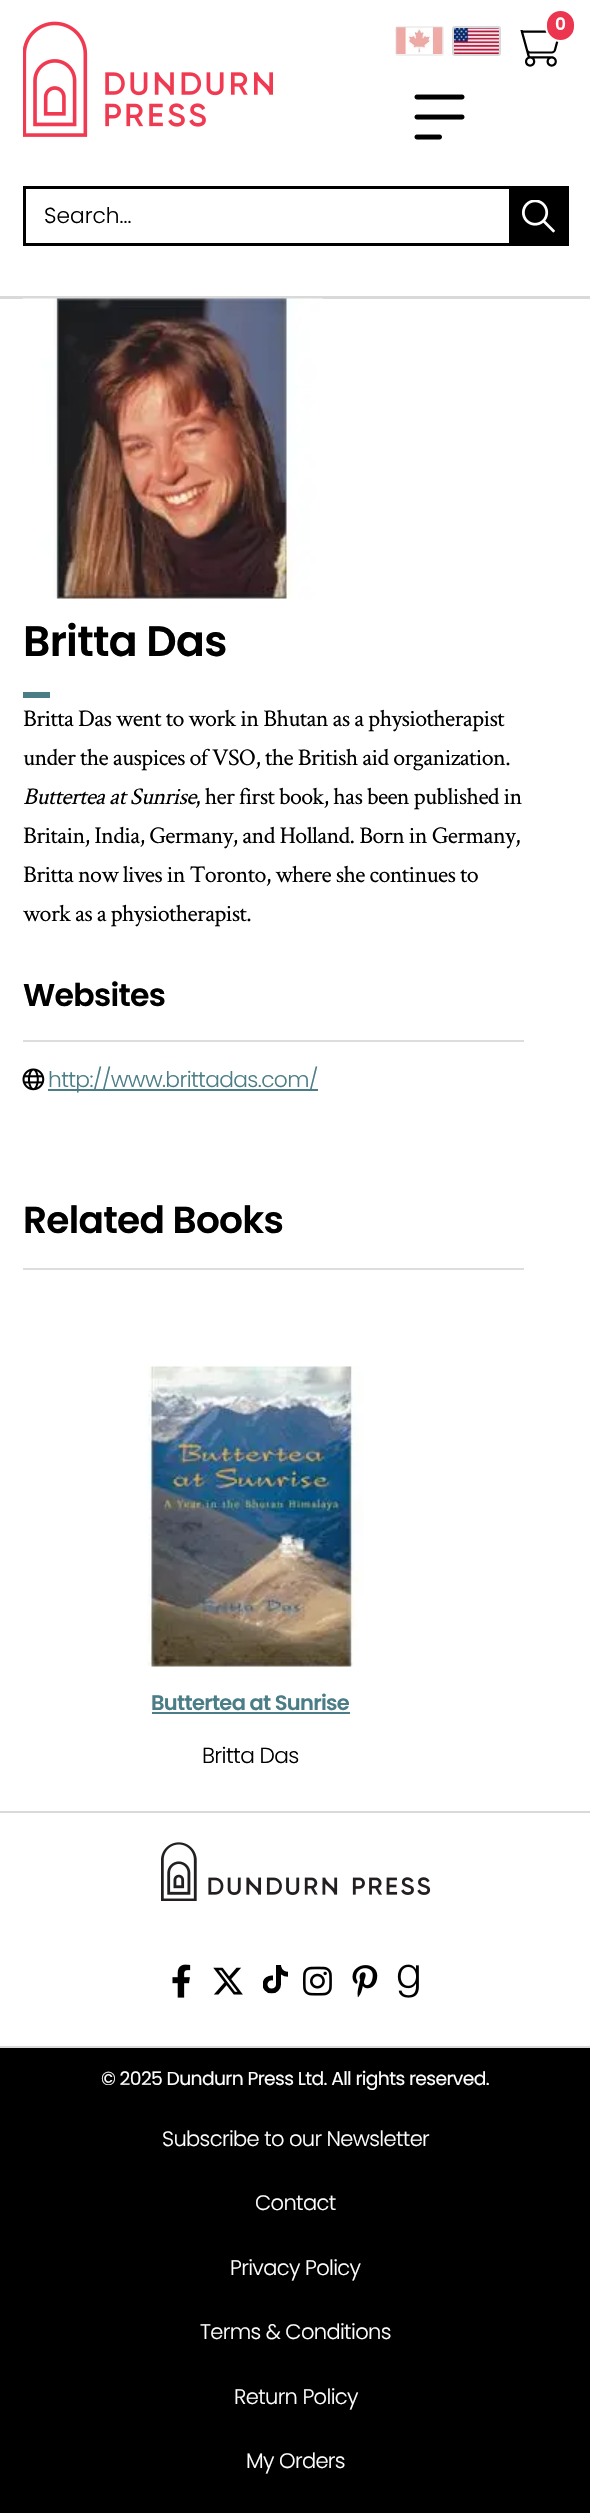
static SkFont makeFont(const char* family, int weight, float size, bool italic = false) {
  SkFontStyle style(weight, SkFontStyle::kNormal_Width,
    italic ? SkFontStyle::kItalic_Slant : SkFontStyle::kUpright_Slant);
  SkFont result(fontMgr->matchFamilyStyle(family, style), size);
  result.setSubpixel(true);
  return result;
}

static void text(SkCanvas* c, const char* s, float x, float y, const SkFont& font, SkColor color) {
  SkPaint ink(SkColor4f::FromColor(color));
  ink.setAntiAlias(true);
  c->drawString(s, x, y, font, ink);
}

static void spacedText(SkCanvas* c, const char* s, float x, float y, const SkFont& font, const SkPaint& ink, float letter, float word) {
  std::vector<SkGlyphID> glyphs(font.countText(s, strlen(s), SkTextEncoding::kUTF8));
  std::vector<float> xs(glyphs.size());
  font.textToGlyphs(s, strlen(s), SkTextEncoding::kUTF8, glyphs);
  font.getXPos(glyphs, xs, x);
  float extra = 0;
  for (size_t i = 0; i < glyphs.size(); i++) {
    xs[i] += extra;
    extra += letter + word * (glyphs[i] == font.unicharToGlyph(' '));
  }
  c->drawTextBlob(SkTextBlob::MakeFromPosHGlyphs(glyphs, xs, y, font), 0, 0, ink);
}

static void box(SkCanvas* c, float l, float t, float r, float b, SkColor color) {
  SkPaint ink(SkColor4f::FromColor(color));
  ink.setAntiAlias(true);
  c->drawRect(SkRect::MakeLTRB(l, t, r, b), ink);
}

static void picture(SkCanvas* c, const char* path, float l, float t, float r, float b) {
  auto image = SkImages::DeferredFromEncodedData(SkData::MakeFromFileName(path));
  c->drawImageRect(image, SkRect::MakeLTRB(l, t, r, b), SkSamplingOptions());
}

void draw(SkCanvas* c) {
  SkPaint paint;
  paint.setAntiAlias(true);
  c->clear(0xffffffff);
  box(c, 0, 296, 590, 299, 0xffd9d9d9);
  picture(c, "img_01.png", 23, 21, 273, 137);
  picture(c, "img_02.png", 414, 94, 465, 140);
  picture(c, "img_03.png", 520, 30, 559, 67);
  paint.setColor(0xffec354e);
  c->drawRoundRect(SkRect::MakeLTRB(546, 10, 575, 41), 14.5f, 14.5f, paint);
  paint.setStyle(SkPaint::kStroke_Style);
  paint.setStrokeWidth(2);
  paint.setColor(0xffffffff);
  c->drawRoundRect(SkRect::MakeLTRB(546, 10, 575, 41), 14.5f, 14.5f, paint);
  SkFont face1 = makeFont("Poppins", 600, 17);
  paint.setStyle(SkPaint::kFill_Style);
  spacedText(c, "0", 555, 30, face1, paint, -0.63f, 0);
  picture(c, "img_04.png", 396, 27, 443, 54);
  paint.setStyle(SkPaint::kStroke_Style);
  paint.setColor(0x66d9d9d9);
  c->drawRoundRect(SkRect::MakeLTRB(396, 27, 443, 55), 2, 2, paint);
  picture(c, "img_05.png", 454, 28, 499, 54);
  paint.setColor(0xffd9d9d9);
  c->drawRoundRect(SkRect::MakeLTRB(453, 27, 500, 55), 2, 2, paint);
  paint.setStrokeWidth(3);
  paint.setColor(0xff000000);
  c->drawRect(SkRect::MakeLTRB(24.5f, 187.5f, 529.5f, 244.5f), paint);
  SkFont face2 = makeFont("Poppins", 300, 21.75f);
  text(c, "Search...", 44, 223, face2, 0xff000000);
  box(c, 509, 186, 569, 246, 0xff000000);
  picture(c, "img_06.png", 522, 200, 555, 233);
  picture(c, "img_07.png", 22, 298, 323, 599);
  SkFont face3 = makeFont("Poppins", 600, 42.5f);
  paint.setStyle(SkPaint::kFill_Style);
  spacedText(c, "Britta Das", 23, 656, face3, paint, -0.7f, 0);
  box(c, 23, 692, 50, 698, 0xff4b7d86);
  SkFont face4 = makeFont("Crimson Text", 400, 24);
  spacedText(c, "Britta Das went to work in Bhutan as a physiotherapist", 23, 726, face4, paint, -0.63f, 0);
  spacedText(c, "under the auspices of VSO, the British aid organization.", 23, 765, face4, paint, -0.63f, 0);
  SkFont face5 = makeFont("Crimson Text", 400, 24, true);
  spacedText(c, "Buttertea at Sunrise", 23, 804, face5, paint, -0.63f, 0);
  spacedText(c, ", her first book, has been published in", 195, 804, face4, paint, -0.63f, 0);
  spacedText(c, "Britain, India, Germany, and Holland. Born in Germany,", 23, 843, face4, paint, -0.63f, 0);
  spacedText(c, "Britta now lives in Toronto, where she continues to", 23, 882, face4, paint, -0.63f, 0);
  spacedText(c, "work as a physiotherapist.", 23, 921, face4, paint, -0.63f, 0);
  SkFont face6 = makeFont("Poppins", 600, 31.5f);
  spacedText(c, "Websites", 23, 1006, face6, paint, -0.7f, 0);
  box(c, 23, 1040, 524, 1042, 0xffdddddd);
  picture(c, "img_08.png", 22, 1068, 45, 1091);
  box(c, 48, 1089, 318, 1091, 0xff4b7d86);
  paint.setColor(0xff4b7d86);
  spacedText(c, "http://www.brittadas.com/", 48, 1087, face2, paint, -0.63f, 0);
  SkFont face7 = makeFont("Poppins", 600, 37.5f);
  paint.setColor(0xff000000);
  spacedText(c, "Related Books", 23, 1233, face7, paint, -0.7f, 0);
  box(c, 23, 1268, 524, 1270, 0xffdddddd);
  picture(c, "img_09.png", 146, 1366, 364, 1667);
  SkFont face8 = makeFont("Poppins", 600, 21);
  paint.setColor(0xff4b7d86);
  spacedText(c, "Buttertea at Sunrise", 151, 1710, face8, paint, -0.7f, 0);
  box(c, 152, 1712, 350, 1714, 0xff4b7d86);
  paint.setColor(0xff000000);
  spacedText(c, "Britta Das", 202, 1763, face2, paint, -0.63f, 0);
  box(c, 0, 1811, 590, 1813, 0xffd9d9d9);
  box(c, 0, 2046, 590, 2048, 0xffd9d9d9);
  picture(c, "img_10.png", 161, 1842, 431, 1901);
  picture(c, "img_11.png", 172, 1964, 191, 1998);
  picture(c, "img_12.png", 213, 1967, 243, 1995);
  picture(c, "img_13.png", 263, 1965, 288, 1994);
  picture(c, "img_14.png", 303, 1966, 332, 1996);
  picture(c, "img_15.png", 352, 1965, 378, 1998);
  picture(c, "img_16.png", 397, 1964, 419, 1998);
  box(c, 0, 2048, 590, 2513, 0xff000000);
  SkFont face9 = makeFont("Poppins", 400, 18.75f);
  paint.setColor(0xffffffff);
  spacedText(c, "© 2025 Dundurn Press Ltd. All rights reserved.", 101, 2085, face9, paint, -0.63f, 0);
  SkFont face10 = makeFont("Poppins", 300, 21);
  spacedText(c, "Subscribe to our Newsletter", 162, 2146, face10, paint, -0.63f, 0);
  spacedText(c, "Contact", 255, 2210, face10, paint, -0.63f, 0);
  spacedText(c, "Privacy Policy", 230, 2275, face10, paint, -0.63f, 0);
  spacedText(c, "Terms & Conditions", 200, 2339, face10, paint, -0.63f, 0);
  spacedText(c, "Return Policy", 234, 2404, face10, paint, -0.63f, 0);
  spacedText(c, "My Orders", 246, 2468, face10, paint, -0.63f, 0);
}
